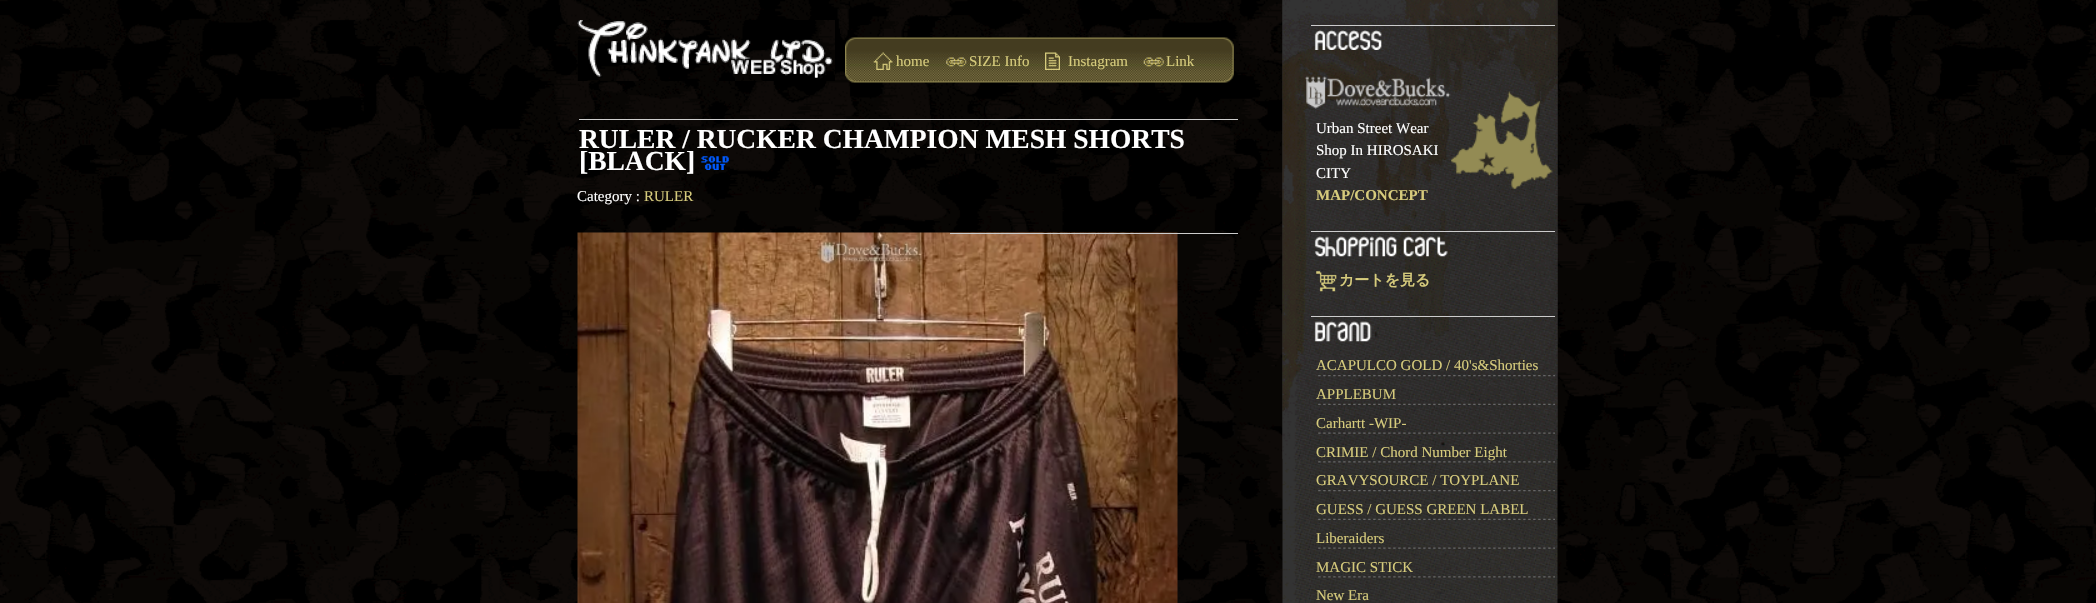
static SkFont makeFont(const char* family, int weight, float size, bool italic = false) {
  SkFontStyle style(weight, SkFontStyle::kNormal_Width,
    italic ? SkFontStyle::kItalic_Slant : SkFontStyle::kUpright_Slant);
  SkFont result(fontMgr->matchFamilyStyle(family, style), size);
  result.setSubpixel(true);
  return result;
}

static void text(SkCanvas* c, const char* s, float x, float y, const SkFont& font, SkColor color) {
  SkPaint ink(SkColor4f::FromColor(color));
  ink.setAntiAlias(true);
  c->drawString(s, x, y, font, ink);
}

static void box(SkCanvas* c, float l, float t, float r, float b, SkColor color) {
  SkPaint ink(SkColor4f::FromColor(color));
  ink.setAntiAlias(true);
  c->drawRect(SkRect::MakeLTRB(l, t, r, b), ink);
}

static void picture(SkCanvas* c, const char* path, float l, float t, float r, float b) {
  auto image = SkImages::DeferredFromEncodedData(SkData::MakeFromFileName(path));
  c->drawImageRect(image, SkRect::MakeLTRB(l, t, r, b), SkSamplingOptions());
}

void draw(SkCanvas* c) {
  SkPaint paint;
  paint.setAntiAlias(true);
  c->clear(0xffffffff);
  picture(c, "img_01.png", 0, 0, 2096, 603);
  picture(c, "img_02.png", 1282, 0, 1558, 603);
  picture(c, "img_03.png", 577, 20, 835, 81);
  picture(c, "img_04.png", 577, 20, 833, 78);
  picture(c, "img_05.png", 845, 37, 1234, 83);
  picture(c, "img_06.png", 873, 52, 893, 70);
  SkFont face1 = makeFont("Liberation Serif", 400, 15);
  text(c, "home", 896, 66, face1, 0xffd6cb7c);
  picture(c, "img_07.png", 946, 57, 967, 67);
  text(c, "SIZE Info", 969, 66, face1, 0xffd6cb7c);
  picture(c, "img_08.png", 1045, 52, 1060, 70);
  text(c, "Instagram", 1068, 66, face1, 0xffd6cb7c);
  picture(c, "img_09.png", 1143, 57, 1164, 67);
  text(c, "Link", 1166, 66, face1, 0xffd6cb7c);
  box(c, 579, 119, 1238, 120, 0xffcccccc);
  SkFont face2 = makeFont("Liberation Serif", 700, 27.5f);
  text(c, "RULER / RUCKER CHAMPION MESH SHORTS", 579, 148, face2, 0xffffffff);
  text(c, "[BLACK]", 579, 170, face2, 0xffffffff);
  picture(c, "img_10.png", 701, 156, 729, 170);
  text(c, "Category :", 577, 201, face1, 0xffffffff);
  text(c, "RULER", 644, 201, face1, 0xffd6cb7c);
  picture(c, "img_11.png", 577, 232, 1178, 603);
  box(c, 950, 233, 1238, 234, 0xffcccccc);
  picture(c, "img_12.png", 1282, 0, 1558, 459);
  box(c, 1311, 25, 1555, 26, 0xffcccccc);
  picture(c, "img_13.png", 1314, 30, 1382, 50);
  picture(c, "img_14.png", 1305, 76, 1451, 109);
  text(c, "Urban Street Wear", 1316, 133, face1, 0xffffffff);
  picture(c, "img_15.png", 1451, 91, 1553, 189);
  text(c, "Shop In HIROSAKI", 1316, 155, face1, 0xffffffff);
  text(c, "CITY", 1316, 178, face1, 0xffffffff);
  SkFont face3 = makeFont("Liberation Serif", 700, 15);
  text(c, "MAP/CONCEPT", 1316, 200, face3, 0xffd6cb7c);
  box(c, 1311, 231, 1555, 232, 0xffcccccc);
  picture(c, "img_16.png", 1314, 236, 1448, 257);
  picture(c, "img_17.png", 1316, 271, 1337, 292);
  SkFont face4 = makeFont("WenQuanYi Zen Hei", 700, 15);
  text(c, "カートを見る", 1339, 285, face4, 0xffd6cb7c);
  box(c, 1311, 316, 1555, 317, 0xffcccccc);
  picture(c, "img_18.png", 1314, 321, 1372, 342);
  picture(c, "img_19.png", 1318, 375, 1555, 377);
  text(c, "ACAPULCO GOLD / 40's&Shorties", 1316, 370, face1, 0xffd6cb7c);
  picture(c, "img_20.png", 1318, 403, 1555, 405);
  text(c, "APPLEBUM", 1316, 399, face1, 0xffd6cb7c);
  picture(c, "img_21.png", 1318, 432, 1555, 434);
  text(c, "Carhartt -WIP-", 1316, 428, face1, 0xffd6cb7c);
  picture(c, "img_22.png", 1318, 461, 1555, 463);
  text(c, "CRIMIE / Chord Number Eight", 1316, 457, face1, 0xffd6cb7c);
  picture(c, "img_23.png", 1318, 490, 1555, 492);
  text(c, "GRAVYSOURCE / TOYPLANE", 1316, 485, face1, 0xffd6cb7c);
  picture(c, "img_24.png", 1318, 518, 1555, 520);
  text(c, "GUESS / GUESS GREEN LABEL", 1316, 514, face1, 0xffd6cb7c);
  picture(c, "img_25.png", 1318, 547, 1555, 549);
  text(c, "Liberaiders", 1316, 543, face1, 0xffd6cb7c);
  picture(c, "img_26.png", 1318, 576, 1555, 578);
  text(c, "MAGIC STICK", 1316, 572, face1, 0xffd6cb7c);
  text(c, "New Era", 1316, 600, face1, 0xffd6cb7c);
}
